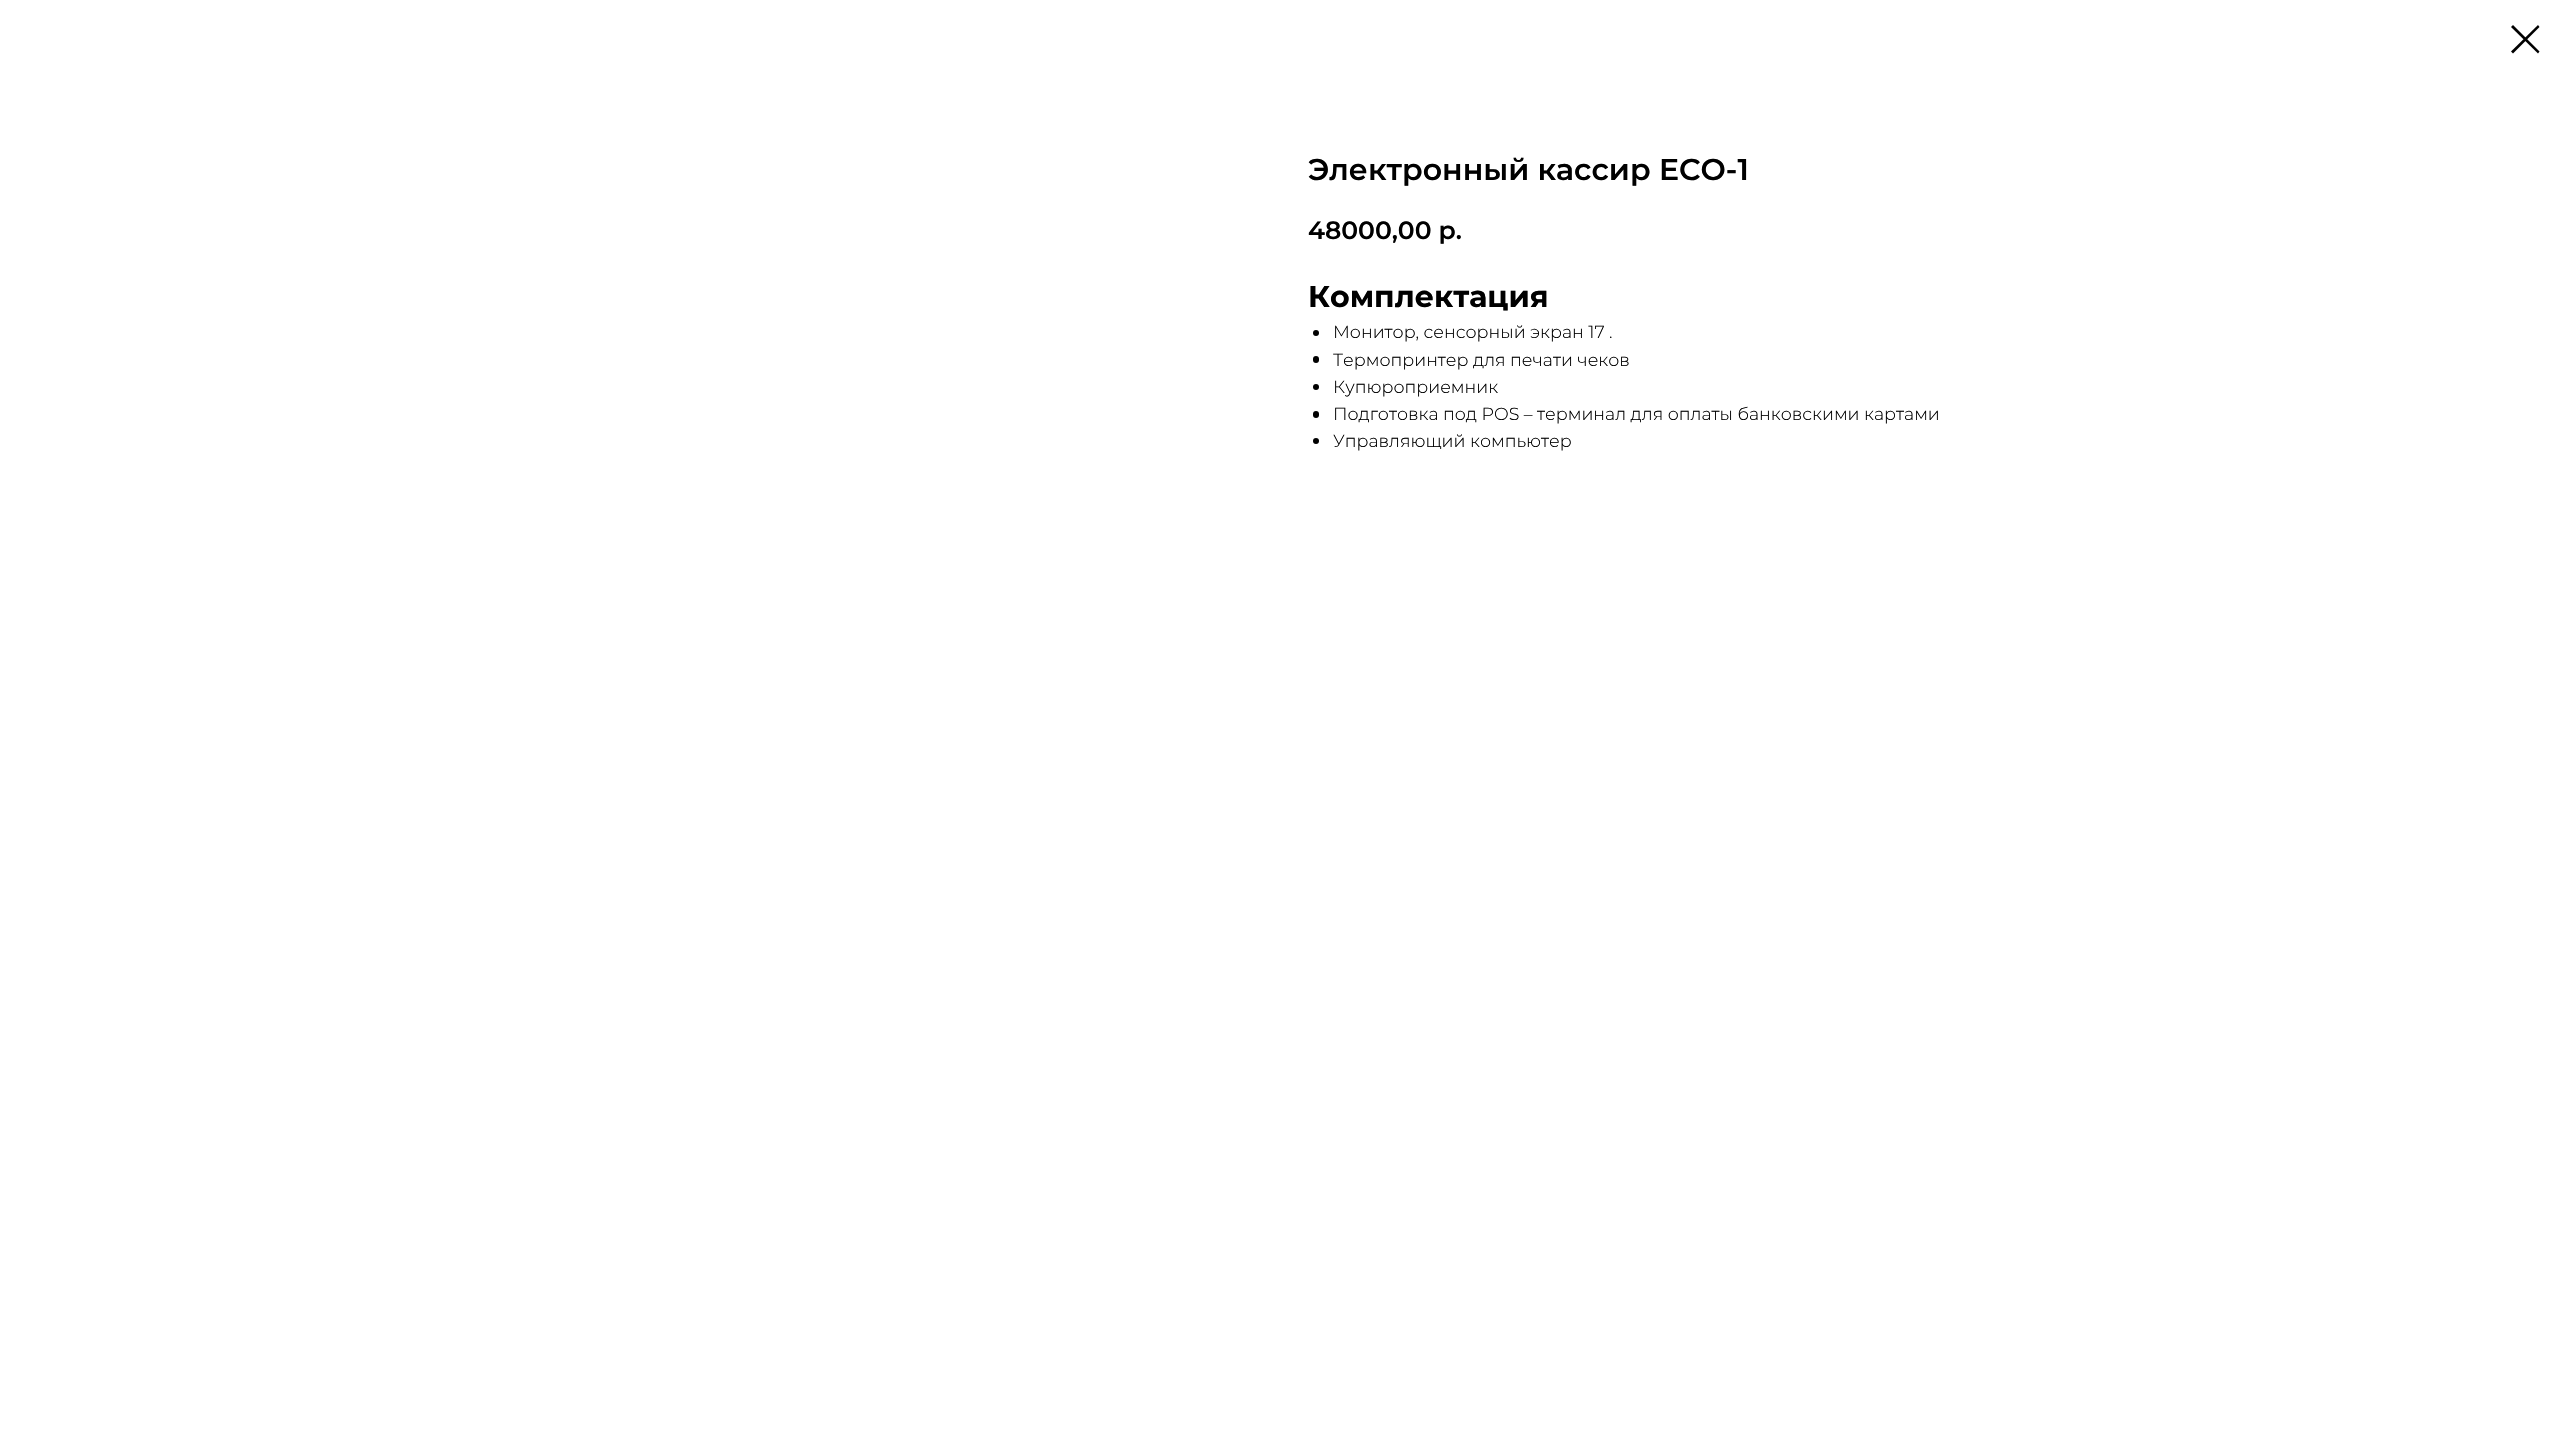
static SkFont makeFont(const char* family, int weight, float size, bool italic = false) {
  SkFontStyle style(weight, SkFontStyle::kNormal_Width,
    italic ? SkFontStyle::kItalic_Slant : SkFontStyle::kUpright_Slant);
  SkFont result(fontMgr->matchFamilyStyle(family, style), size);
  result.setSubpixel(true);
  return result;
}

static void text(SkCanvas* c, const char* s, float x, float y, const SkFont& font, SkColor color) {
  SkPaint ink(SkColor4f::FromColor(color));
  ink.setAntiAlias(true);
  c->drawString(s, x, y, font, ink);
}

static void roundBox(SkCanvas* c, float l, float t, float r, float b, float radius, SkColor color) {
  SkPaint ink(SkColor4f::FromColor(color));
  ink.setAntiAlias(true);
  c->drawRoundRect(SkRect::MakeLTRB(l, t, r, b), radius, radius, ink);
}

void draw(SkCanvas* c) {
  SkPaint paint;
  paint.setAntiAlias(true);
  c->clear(0xffffffff);
  paint.setColor(0xff000000);
  c->drawPath(SkPathBuilder(SkPathFillType::kEvenOdd).moveTo(2511, 27).lineTo(2513, 25).lineTo(2539.5f, 51.5f).lineTo(2538, 53.5f).close().detach(), paint);
  c->drawPath(SkPathBuilder(SkPathFillType::kEvenOdd).moveTo(2538, 25).lineTo(2539.5f, 27).lineTo(2513, 53.5f).lineTo(2511, 51.5f).close().detach(), paint);
  SkFont face1 = makeFont("Montserrat", 600, 30);
  text(c, "Электронный кассир ECO-1", 1308, 180, face1, 0xff000000);
  SkFont face2 = makeFont("Montserrat", 600, 25);
  text(c, "48000,00 р.", 1308, 239, face2, 0xff000000);
  SkFont face3 = makeFont("Montserrat", 700, 30);
  text(c, "Комплектация", 1308, 307, face3, 0xff000000);
  c->drawCircle(1316, 333, 3, paint);
  SkFont face4 = makeFont("Montserrat", 300, 17.5f);
  text(c, "Монитор, сенсорный экран 17 .", 1333, 338, face4, 0xff000000);
  roundBox(c, 1313, 356, 1319, 363, 3, 0xff000000);
  text(c, "Термопринтер для печати чеков", 1333, 366, face4, 0xff000000);
  c->drawCircle(1316, 387, 3, paint);
  text(c, "Купюроприемник", 1333, 393, face4, 0xff000000);
  roundBox(c, 1313, 411, 1319, 418, 3, 0xff000000);
  text(c, "Подготовка под POS – терминал для оплаты банковскими картами", 1333, 420, face4, 0xff000000);
  c->drawCircle(1316, 441, 3, paint);
  text(c, "Управляющий компьютер", 1333, 447, face4, 0xff000000);
}
